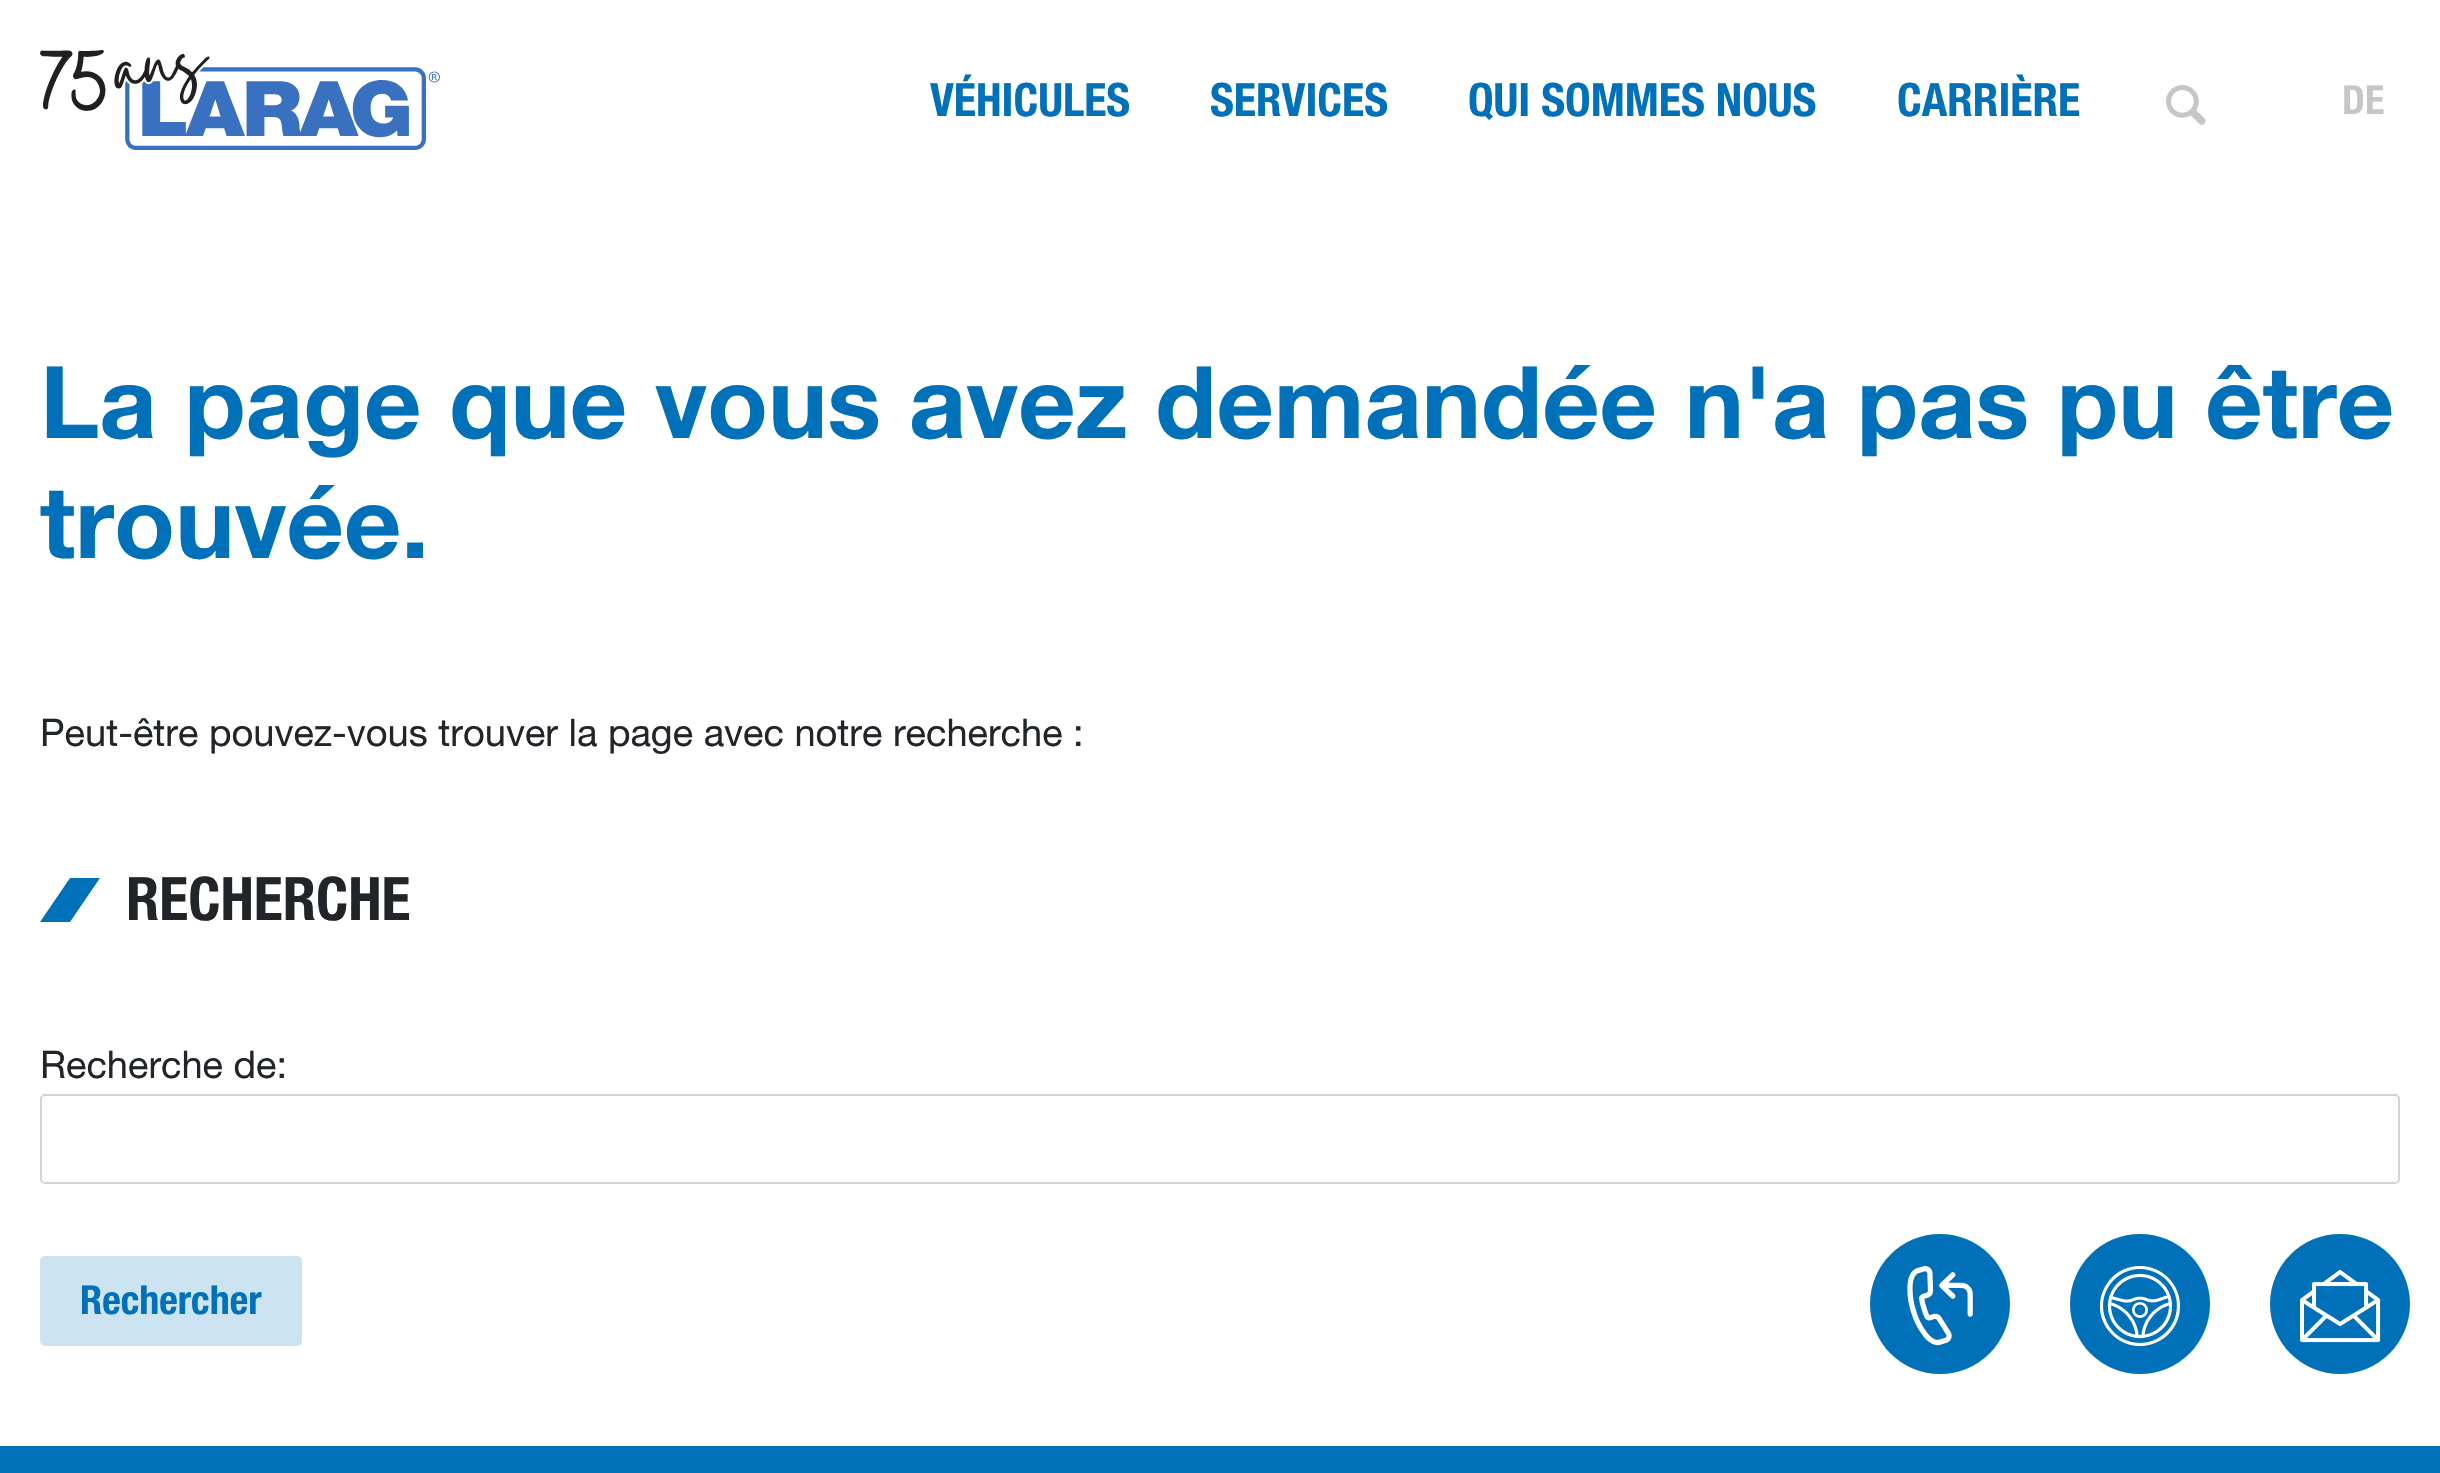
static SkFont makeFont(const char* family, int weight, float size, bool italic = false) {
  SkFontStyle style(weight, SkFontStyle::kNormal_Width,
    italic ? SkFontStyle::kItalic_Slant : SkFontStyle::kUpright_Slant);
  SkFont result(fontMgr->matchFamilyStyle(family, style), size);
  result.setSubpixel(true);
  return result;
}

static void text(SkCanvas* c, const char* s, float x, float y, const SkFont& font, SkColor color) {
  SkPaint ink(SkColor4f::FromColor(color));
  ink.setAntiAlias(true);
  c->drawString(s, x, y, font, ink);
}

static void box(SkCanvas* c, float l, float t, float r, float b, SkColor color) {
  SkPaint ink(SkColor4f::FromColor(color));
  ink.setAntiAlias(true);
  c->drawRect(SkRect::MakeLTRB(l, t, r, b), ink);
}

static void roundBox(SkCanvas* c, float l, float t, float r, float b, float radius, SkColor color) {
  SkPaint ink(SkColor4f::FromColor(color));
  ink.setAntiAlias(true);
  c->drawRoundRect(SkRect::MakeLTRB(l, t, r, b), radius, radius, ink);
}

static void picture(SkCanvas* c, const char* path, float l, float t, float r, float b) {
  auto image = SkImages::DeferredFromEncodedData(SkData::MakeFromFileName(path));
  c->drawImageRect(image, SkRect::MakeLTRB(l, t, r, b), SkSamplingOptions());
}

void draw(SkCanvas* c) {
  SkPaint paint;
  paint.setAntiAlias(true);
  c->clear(0xffffffff);
  picture(c, "img_01.png", 40, 50, 440, 150);
  SkFont face1 = makeFont("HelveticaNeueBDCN", 700, 46);
  text(c, "VÉHICULES", 930, 116, face1, 0xff0071b9);
  text(c, "SERVICES", 1210, 116, face1, 0xff0071b9);
  text(c, "QUI SOMMES NOUS", 1468, 116, face1, 0xff0071b9);
  text(c, "CARRIÈRE", 1897, 116, face1, 0xff0071b9);
  picture(c, "img_02.png", 2166, 85, 2206, 125);
  SkFont face2 = makeFont("HelveticaNeueBDCN", 700, 40);
  text(c, "DE", 2342, 114, face2, 0xffc6c6c6);
  SkFont face3 = makeFont("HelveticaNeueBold", 700, 100);
  text(c, "La page que vous avez demandée n'a pas pu être", 40, 438, face3, 0xff0071b9);
  text(c, "trouvée.", 40, 558, face3, 0xff0071b9);
  SkFont face4 = makeFont("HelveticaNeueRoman", 400, 38);
  text(c, "Peut-être pouvez-vous trouver la page avec notre recherche :", 40, 746, face4, 0xff212529);
  paint.setColor(0xff0071b9);
  c->drawPath(SkPathBuilder().moveTo(70, 878).lineTo(40, 922).lineTo(70, 922).lineTo(100, 878).close().detach(), paint);
  SkFont face5 = makeFont("HelveticaNeueBDCN", 700, 60);
  text(c, "RECHERCHE", 126, 920, face5, 0xff212529);
  text(c, "Recherche de:", 40, 1078, face4, 0xff212529);
  paint.setStyle(SkPaint::kStroke_Style);
  paint.setStrokeWidth(2);
  paint.setColor(0xffced4da);
  c->drawRoundRect(SkRect::MakeLTRB(41, 1095, 2399, 1183), 4, 4, paint);
  roundBox(c, 40, 1256, 302, 1346, 5, 0xffcce3f1);
  text(c, "Rechercher", 80, 1314, face2, 0xff0071b9);
  paint.setStyle(SkPaint::kFill_Style);
  paint.setColor(0xff0071b9);
  c->drawCircle(1940, 1304, 70, paint);
  picture(c, "img_03.png", 1907, 1266, 1973, 1346);
  c->drawCircle(2140, 1304, 70, paint);
  picture(c, "img_04.png", 2099, 1266, 2180, 1347);
  c->drawCircle(2340, 1304, 70, paint);
  picture(c, "img_05.png", 2300, 1270, 2381, 1343);
  box(c, 0, 1446, 2440, 1473, 0xff0071b9);
}
